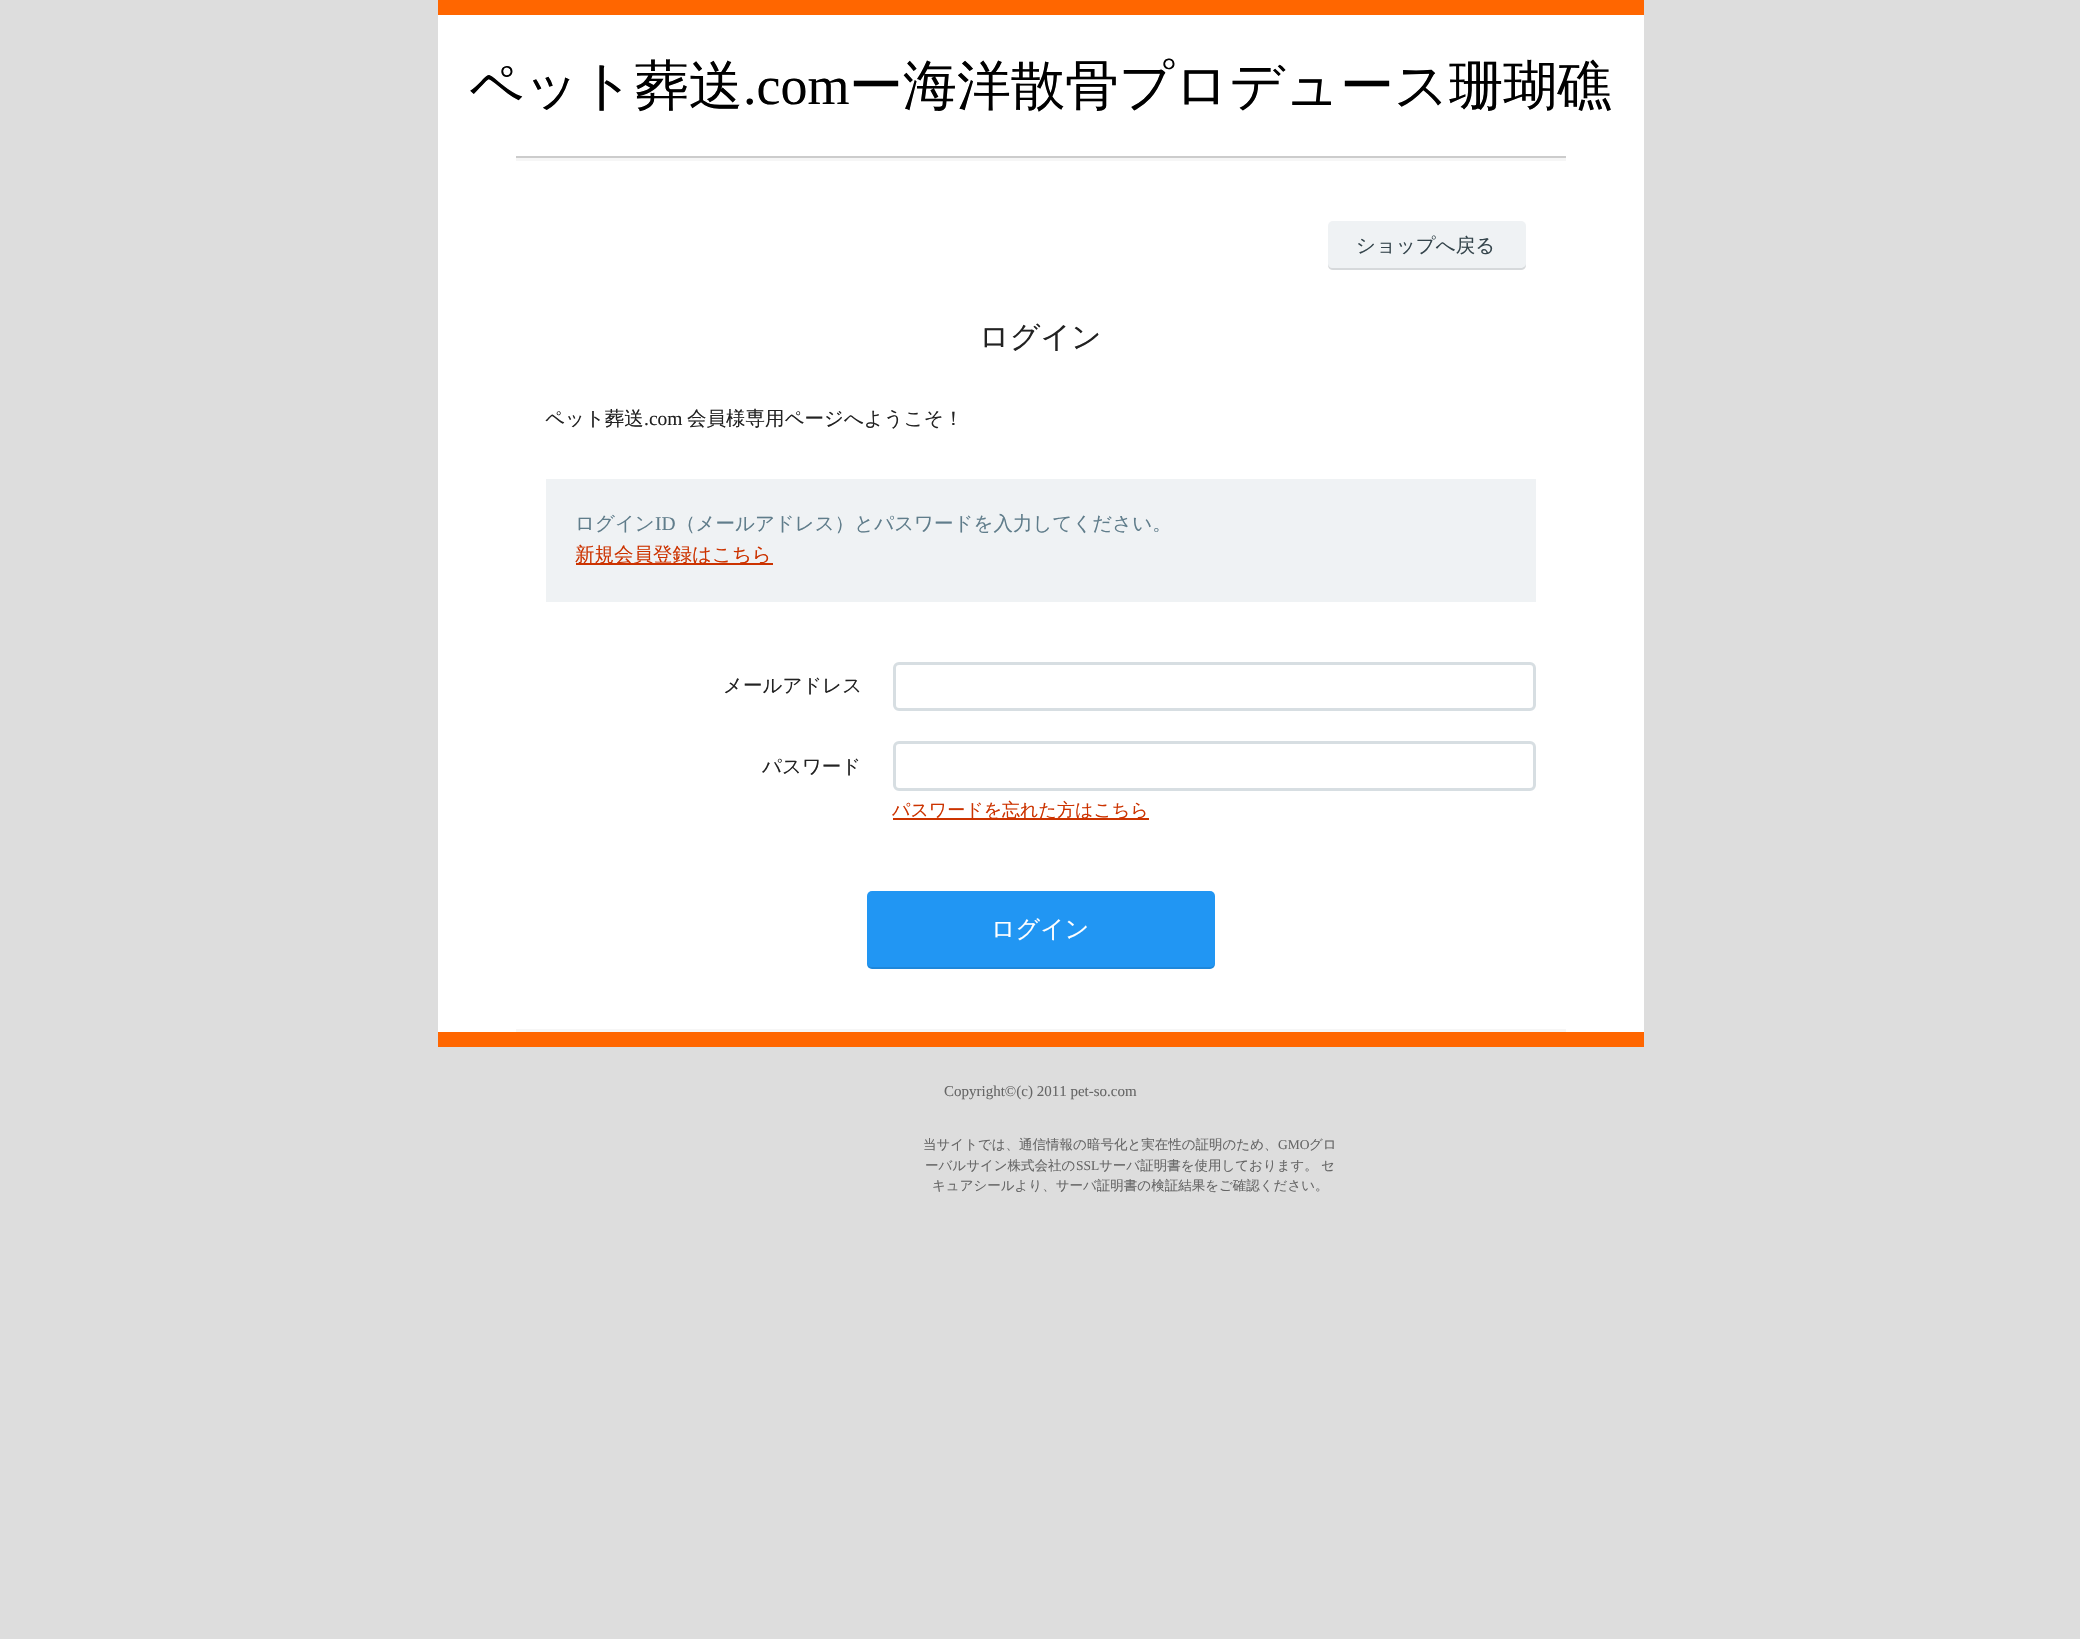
static SkFont makeFont(const char* family, int weight, float size, bool italic = false) {
  SkFontStyle style(weight, SkFontStyle::kNormal_Width,
    italic ? SkFontStyle::kItalic_Slant : SkFontStyle::kUpright_Slant);
  SkFont result(fontMgr->matchFamilyStyle(family, style), size);
  result.setSubpixel(true);
  return result;
}

static void text(SkCanvas* c, const char* s, float x, float y, const SkFont& font, SkColor color) {
  SkPaint ink(SkColor4f::FromColor(color));
  ink.setAntiAlias(true);
  c->drawString(s, x, y, font, ink);
}

static void spacedText(SkCanvas* c, const char* s, float x, float y, const SkFont& font, const SkPaint& ink, float letter, float word) {
  std::vector<SkGlyphID> glyphs(font.countText(s, strlen(s), SkTextEncoding::kUTF8));
  std::vector<float> xs(glyphs.size());
  font.textToGlyphs(s, strlen(s), SkTextEncoding::kUTF8, glyphs);
  font.getXPos(glyphs, xs, x);
  float extra = 0;
  for (size_t i = 0; i < glyphs.size(); i++) {
    xs[i] += extra;
    extra += letter + word * (glyphs[i] == font.unicharToGlyph(' '));
  }
  c->drawTextBlob(SkTextBlob::MakeFromPosHGlyphs(glyphs, xs, y, font), 0, 0, ink);
}

static void box(SkCanvas* c, float l, float t, float r, float b, SkColor color) {
  SkPaint ink(SkColor4f::FromColor(color));
  ink.setAntiAlias(true);
  c->drawRect(SkRect::MakeLTRB(l, t, r, b), ink);
}

static void roundBox(SkCanvas* c, float l, float t, float r, float b, float radius, SkColor color) {
  SkPaint ink(SkColor4f::FromColor(color));
  ink.setAntiAlias(true);
  c->drawRoundRect(SkRect::MakeLTRB(l, t, r, b), radius, radius, ink);
}

void draw(SkCanvas* c) {
  SkPaint paint;
  paint.setAntiAlias(true);
  c->clear(0xffdddddd);
  box(c, 438, 15, 1644, 1032, 0xffffffff);
  box(c, 438, 0, 1644, 15, 0xffff6600);
  box(c, 438, 1032, 1644, 1047, 0xffff6600);
  SkFont face1 = makeFont("WenQuanYi Zen Hei", 500, 54);
  text(c, "ペット葬送", 469, 104, face1, 0xff000000);
  SkFont face2 = makeFont("Liberation Serif", 400, 54);
  text(c, ".com", 743, 104, face2, 0xff000000);
  text(c, "ー海洋散骨プロデュース珊瑚礁", 849, 104, face1, 0xff000000);
  box(c, 516, 156, 1566, 158, 0xffcccccc);
  box(c, 516, 158, 1566, 161, 0xfff6f6f6);
  box(c, 516, 1029, 1566, 1032, 0xfff6f6f6);
  roundBox(c, 1328, 221, 1526, 270, 5, 0xffeff2f4);
  paint.setColor(0x1a000000);
  c->drawPath(SkPathBuilder().moveTo(1328, 264).lineTo(1328, 265).cubicTo(1328, 268, 1330, 270, 1333, 270).lineTo(1521, 270).cubicTo(1524, 270, 1526, 268, 1526, 265).lineTo(1526, 264).cubicTo(1526, 266, 1523, 268, 1521, 268).lineTo(1332, 268).cubicTo(1330, 268, 1328, 266, 1328, 264).close().detach(), paint);
  SkFont face3 = makeFont("WenQuanYi Zen Hei", 500, 19.5f);
  text(c, "ショップへ戻る", 1356, 252, face3, 0xff35454c);
  SkFont face4 = makeFont("WenQuanYi Zen Hei", 500, 30);
  text(c, "ログイン", 979, 347, face4, 0xff222222);
  text(c, "ペット葬送", 545, 425, face3, 0xff222222);
  SkFont face5 = makeFont("Liberation Serif", 400, 19.5f);
  text(c, ".com", 644, 425, face5, 0xff222222);
  text(c, "会員様専用ページへようこそ！", 687, 425, face3, 0xff222222);
  box(c, 546, 479, 1536, 602, 0xffeff2f4);
  text(c, "ログイン", 575, 530, face3, 0xff607d8b);
  text(c, "ID", 655, 530, face5, 0xff607d8b);
  text(c, "（メールアドレス）とパスワードを入力してください。", 676, 530, face3, 0xff607d8b);
  box(c, 576, 563, 773, 565, 0xffcc3300);
  text(c, "新規会員登録はこちら", 575, 561, face3, 0xffcc3300);
  text(c, "メールアドレス", 723, 692, face3, 0xff222222);
  paint.setStyle(SkPaint::kStroke_Style);
  paint.setStrokeWidth(3);
  paint.setColor(0xffd7dee2);
  c->drawRoundRect(SkRect::MakeLTRB(894.5f, 663.5f, 1534.5f, 709.5f), 4.5f, 4.5f, paint);
  text(c, "パスワード", 762, 773, face3, 0xff222222);
  c->drawRoundRect(SkRect::MakeLTRB(894.5f, 742.5f, 1534.5f, 789.5f), 4.5f, 4.5f, paint);
  box(c, 893, 818, 1149, 820, 0xffcc3300);
  SkFont face6 = makeFont("WenQuanYi Zen Hei", 500, 18);
  text(c, "パスワードを忘れた方はこちら", 892, 816, face6, 0xffcc3300);
  roundBox(c, 867, 891, 1215, 969, 5, 0xff2196f3);
  paint.setStyle(SkPaint::kFill_Style);
  paint.setColor(0x1a000000);
  c->drawPath(SkPathBuilder().moveTo(867, 962).cubicTo(867, 965, 868, 969, 872, 969).lineTo(1210, 969).cubicTo(1214, 969, 1215, 965, 1215, 962).cubicTo(1215, 965, 1213, 967, 1210, 967).lineTo(872, 967).cubicTo(869, 967, 867, 965, 867, 962).close().detach(), paint);
  SkFont face7 = makeFont("WenQuanYi Zen Hei", 500, 24);
  text(c, "ログイン", 991, 937, face7, 0xffffffff);
  SkFont face8 = makeFont("Liberation Serif", 400, 15);
  text(c, "Copyright©(c) 2011 pet-so.com", 944, 1096, face8, 0xff666666);
  SkFont face9 = makeFont("WenQuanYi Zen Hei", 500, 13.5f);
  text(c, "当サイトでは、通信情報の暗号化と実在性の証明のため、", 923, 1149, face9, 0xff666666);
  SkFont face10 = makeFont("Liberation Serif", 400, 13.5f);
  text(c, "GMO", 1278, 1149, face10, 0xff666666);
  text(c, "グロ", 1309, 1149, face9, 0xff666666);
  text(c, "ーバルサイン株式会社の", 925, 1170, face9, 0xff666666);
  text(c, "SSL", 1076, 1170, face10, 0xff666666);
  paint.setColor(0xff666666);
  spacedText(c, "サーバ証明書を使用しております。 セ", 1099, 1170, face9, paint, 0, -1);
  text(c, "キュアシールより、サーバ証明書の検証結果をご確認ください。", 932, 1190, face9, 0xff666666);
}
